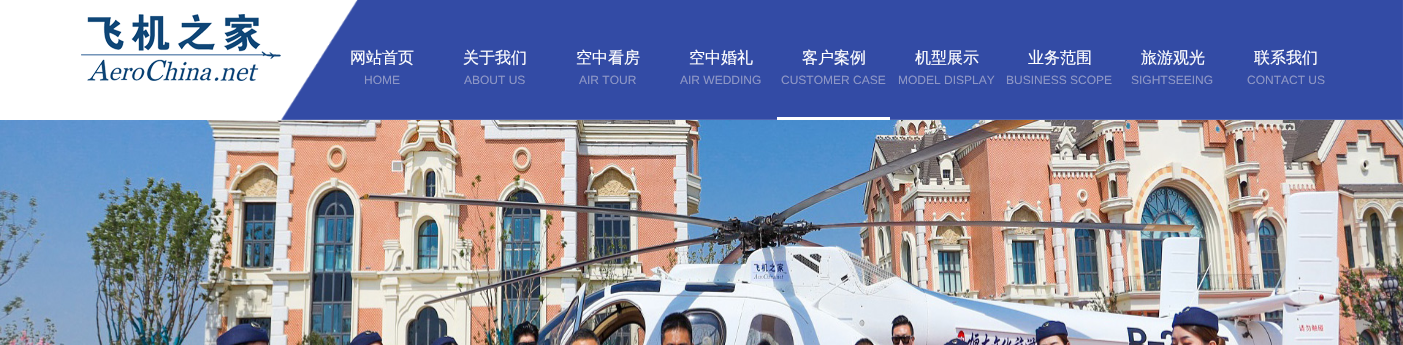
static SkFont makeFont(const char* family, int weight, float size, bool italic = false) {
  SkFontStyle style(weight, SkFontStyle::kNormal_Width,
    italic ? SkFontStyle::kItalic_Slant : SkFontStyle::kUpright_Slant);
  SkFont result(fontMgr->matchFamilyStyle(family, style), size);
  result.setSubpixel(true);
  return result;
}

static void text(SkCanvas* c, const char* s, float x, float y, const SkFont& font, SkColor color) {
  SkPaint ink(SkColor4f::FromColor(color));
  ink.setAntiAlias(true);
  c->drawString(s, x, y, font, ink);
}

static void box(SkCanvas* c, float l, float t, float r, float b, SkColor color) {
  SkPaint ink(SkColor4f::FromColor(color));
  ink.setAntiAlias(true);
  c->drawRect(SkRect::MakeLTRB(l, t, r, b), ink);
}

static void picture(SkCanvas* c, const char* path, float l, float t, float r, float b) {
  auto image = SkImages::DeferredFromEncodedData(SkData::MakeFromFileName(path));
  c->drawImageRect(image, SkRect::MakeLTRB(l, t, r, b), SkSamplingOptions());
}

void draw(SkCanvas* c) {
  SkPaint paint;
  paint.setAntiAlias(true);
  c->clear(0xffffffff);
  picture(c, "img_01.png", 81, 14, 281, 81);
  picture(c, "img_02.png", 281, 0, 1403, 120);
  SkFont face1 = makeFont("WenQuanYi Zen Hei", 500, 16);
  text(c, "网站首页", 350, 63, face1, 0xffffffff);
  SkFont face2 = makeFont("Liberation Sans", 400, 12);
  text(c, "HOME", 364, 84, face2, 0xff8e97c6);
  text(c, "关于我们", 463, 63, face1, 0xffffffff);
  text(c, "ABOUT US", 464, 84, face2, 0xff8e97c6);
  text(c, "空中看房", 576, 63, face1, 0xffffffff);
  text(c, "AIR TOUR", 579, 84, face2, 0xff8e97c6);
  text(c, "空中婚礼", 689, 63, face1, 0xffffffff);
  text(c, "AIR WEDDING", 680, 84, face2, 0xff8e97c6);
  box(c, 777, 117, 890, 120, 0xffffffff);
  text(c, "客户案例", 802, 63, face1, 0xffffffff);
  text(c, "CUSTOMER CASE", 781, 84, face2, 0xff8e97c6);
  text(c, "机型展示", 915, 63, face1, 0xffffffff);
  text(c, "MODEL DISPLAY", 898, 84, face2, 0xff8e97c6);
  text(c, "业务范围", 1028, 63, face1, 0xffffffff);
  text(c, "BUSINESS SCOPE", 1006, 84, face2, 0xff8e97c6);
  text(c, "旅游观光", 1141, 63, face1, 0xffffffff);
  text(c, "SIGHTSEEING", 1131, 84, face2, 0xff8e97c6);
  text(c, "联系我们", 1254, 63, face1, 0xffffffff);
  text(c, "CONTACT US", 1247, 84, face2, 0xff8e97c6);
  picture(c, "img_03.png", 0, 120, 1403, 345);
}
